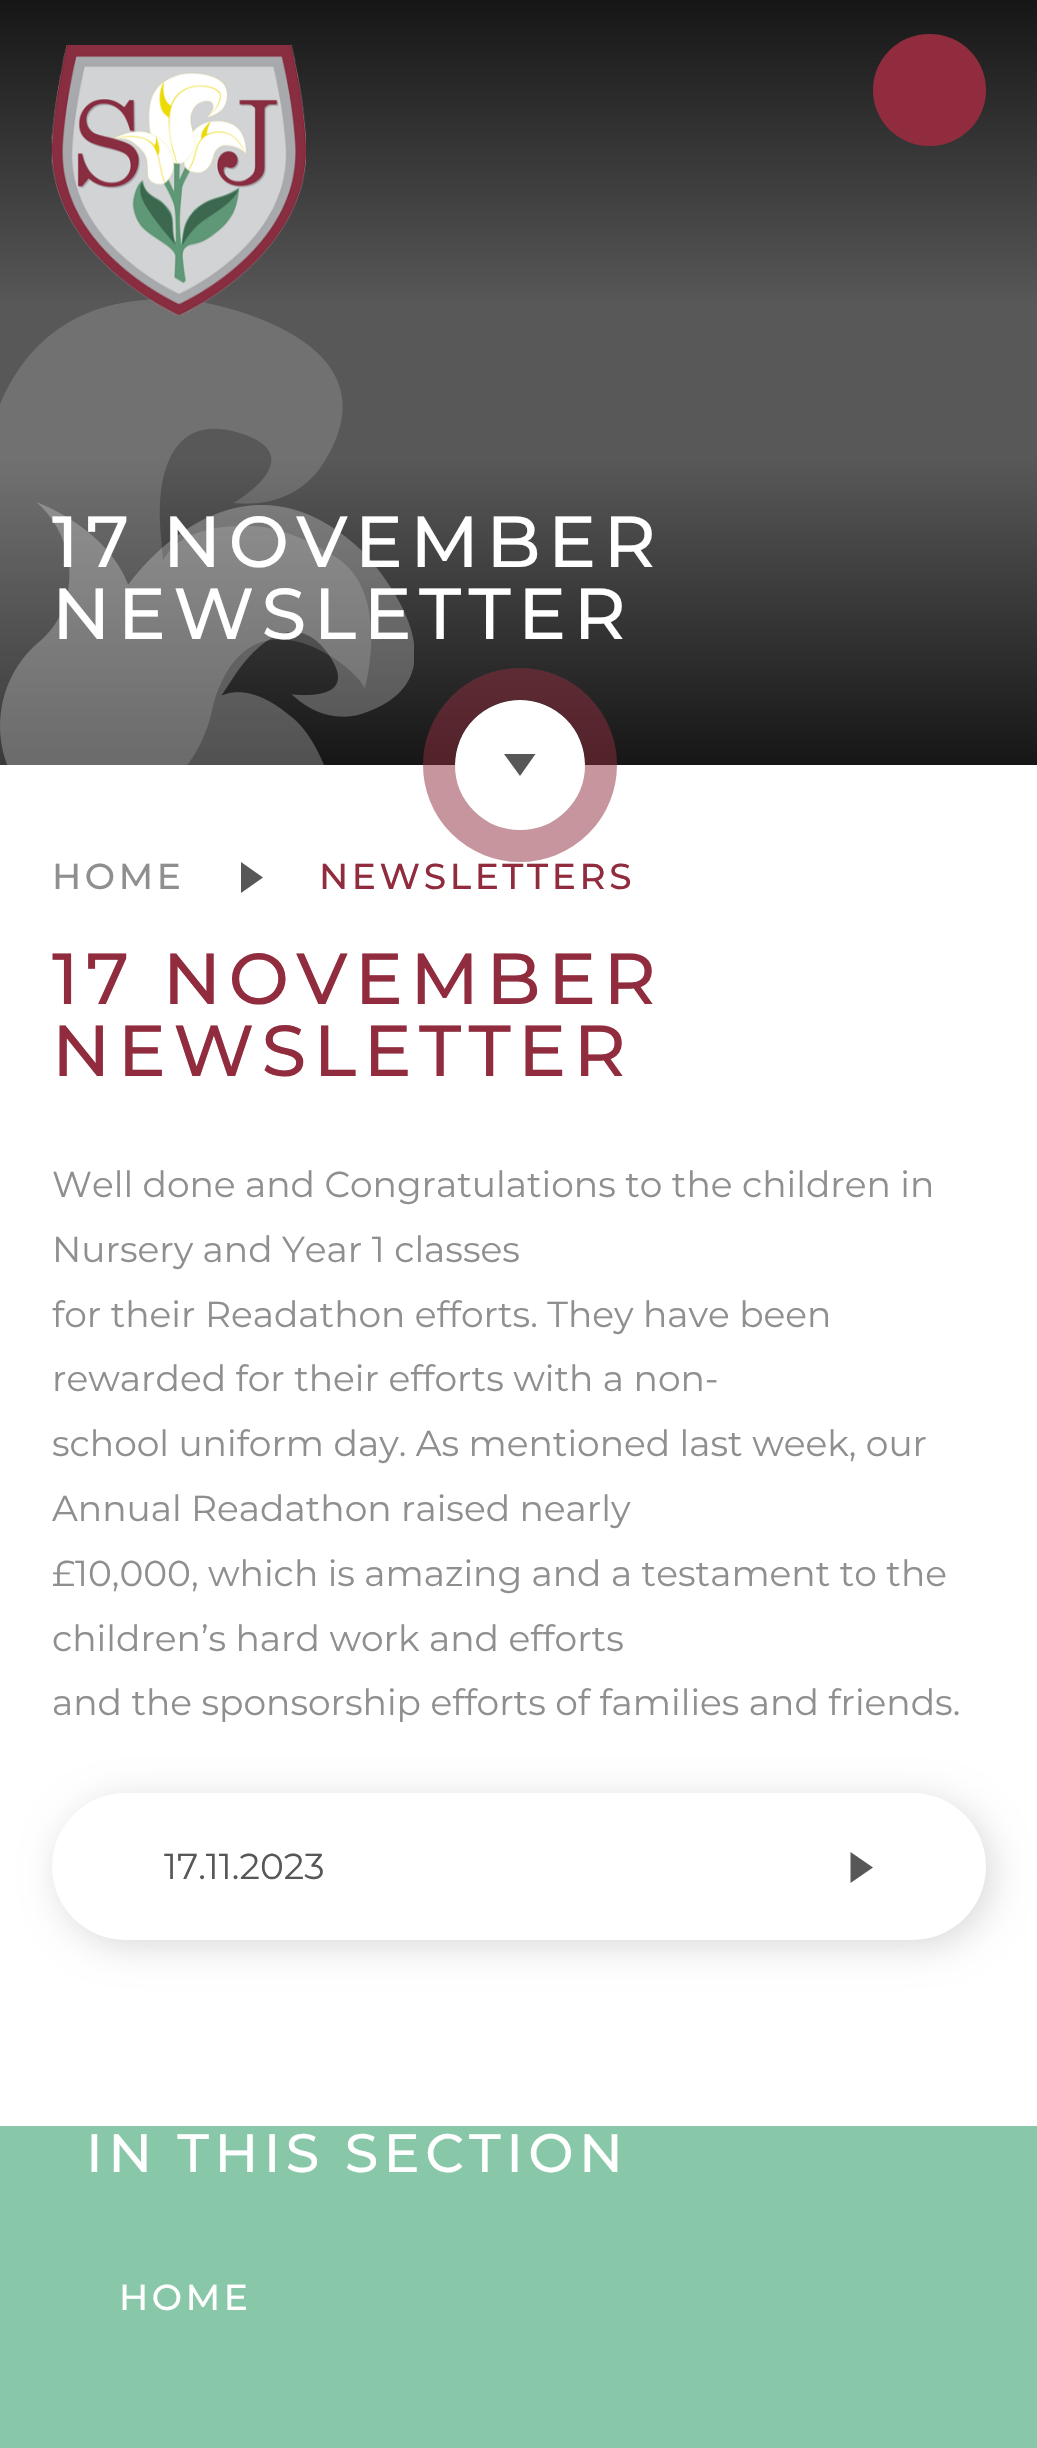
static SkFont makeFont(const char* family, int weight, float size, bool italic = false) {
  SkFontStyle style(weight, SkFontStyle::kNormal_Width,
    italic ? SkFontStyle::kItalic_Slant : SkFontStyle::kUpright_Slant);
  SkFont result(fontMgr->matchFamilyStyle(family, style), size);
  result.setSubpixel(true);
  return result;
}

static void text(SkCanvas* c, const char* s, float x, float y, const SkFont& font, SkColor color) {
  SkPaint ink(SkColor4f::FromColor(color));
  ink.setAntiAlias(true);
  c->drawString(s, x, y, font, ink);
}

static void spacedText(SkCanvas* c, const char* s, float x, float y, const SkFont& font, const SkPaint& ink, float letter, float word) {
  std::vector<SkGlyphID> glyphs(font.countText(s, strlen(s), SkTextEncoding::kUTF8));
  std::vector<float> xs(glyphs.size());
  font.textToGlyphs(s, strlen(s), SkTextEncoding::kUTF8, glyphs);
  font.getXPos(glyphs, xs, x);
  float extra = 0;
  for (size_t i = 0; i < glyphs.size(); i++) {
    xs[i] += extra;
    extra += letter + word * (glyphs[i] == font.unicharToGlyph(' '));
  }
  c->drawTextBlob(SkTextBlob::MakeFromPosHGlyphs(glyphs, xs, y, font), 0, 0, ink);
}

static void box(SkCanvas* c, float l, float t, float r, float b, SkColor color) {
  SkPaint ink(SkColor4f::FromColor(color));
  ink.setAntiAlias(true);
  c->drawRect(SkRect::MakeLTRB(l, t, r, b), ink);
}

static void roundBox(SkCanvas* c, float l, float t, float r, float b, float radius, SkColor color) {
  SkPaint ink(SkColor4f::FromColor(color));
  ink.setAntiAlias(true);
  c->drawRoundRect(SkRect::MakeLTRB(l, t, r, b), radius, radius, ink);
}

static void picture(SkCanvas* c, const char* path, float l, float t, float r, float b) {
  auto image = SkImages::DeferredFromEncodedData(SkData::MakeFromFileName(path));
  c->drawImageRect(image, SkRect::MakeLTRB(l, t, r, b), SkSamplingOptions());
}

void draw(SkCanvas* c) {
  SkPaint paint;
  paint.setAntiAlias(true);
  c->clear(0xffffffff);
  {
    const SkColor colors[] = {0xff161616, 0xff585858, 0xff585858, 0xff161616};
    const float stops[] = {0, 0.4f, 0.6f, 1};
    const SkPoint ends[] = {{519, 0}, {519, 765}};
    paint.setShader(SkGradientShader::MakeLinear(ends, colors, stops, 4, SkTileMode::kClamp));
    paint.setAlpha(255);
  }
  c->drawRect(SkRect::MakeLTRB(0, 0, 1037, 765), paint);
  picture(c, "img_02.png", 0, 299, 414, 765);
  picture(c, "img_01.png", 51, 45, 306, 315);
  roundBox(c, 873, 34, 986, 146, 56, 0xff902c3d);
  SkFont face1 = makeFont("Montserrat", 500, 72);
  paint.setShader(nullptr);
  paint.setColor(0xffffffff);
  spacedText(c, "17 NOVEMBER", 52, 567, face1, paint, 7.25f, 0);
  spacedText(c, "NEWSLETTER", 52, 639, face1, paint, 7.25f, 0);
  c->drawCircle(520, 765, 65, paint);
  paint.setStyle(SkPaint::kStroke_Style);
  paint.setStrokeWidth(32);
  paint.setColor(0x80902c3d);
  c->drawCircle(520, 765, 81, paint);
  paint.setStyle(SkPaint::kFill_Style);
  paint.setColor(0xff575757);
  c->drawPath(SkPathBuilder().moveTo(504, 754).lineTo(535.5f, 754).lineTo(520, 776).close().detach(), paint);
  SkFont face2 = makeFont("Montserrat", 500, 36);
  paint.setColor(0xff8f8f8f);
  spacedText(c, "HOME", 52, 889, face2, paint, 3.6f, 0);
  paint.setColor(0xff575757);
  c->drawPath(SkPathBuilder().moveTo(241, 893).lineTo(241, 862).lineTo(263, 877.5f).close().detach(), paint);
  paint.setColor(0xff902c3d);
  spacedText(c, "NEWSLETTERS", 319, 889, face2, paint, 3.6f, 0);
  spacedText(c, "17 NOVEMBER", 52, 1004, face1, paint, 7.25f, 0);
  spacedText(c, "NEWSLETTER", 52, 1076, face1, paint, 7.25f, 0);
  SkFont face3 = makeFont("Montserrat", 400, 36);
  text(c, "Well done and Congratulations to the children in", 52, 1197, face3, 0xff8f8f8f);
  text(c, "Nursery and Year 1 classes", 52, 1262, face3, 0xff8f8f8f);
  text(c, "for their Readathon efforts. They have been", 52, 1327, face3, 0xff8f8f8f);
  text(c, "rewarded for their efforts with a non-", 52, 1391, face3, 0xff8f8f8f);
  text(c, "school uniform day. As mentioned last week, our", 52, 1456, face3, 0xff8f8f8f);
  text(c, "Annual Readathon raised nearly", 52, 1521, face3, 0xff8f8f8f);
  text(c, "£10,000, which is amazing and a testament to the", 52, 1586, face3, 0xff8f8f8f);
  text(c, "children’s hard work and efforts", 52, 1651, face3, 0xff8f8f8f);
  text(c, "and the sponsorship efforts of families and friends.", 52, 1715, face3, 0xff8f8f8f);
  paint.setColor(0x26000000);
  paint.setMaskFilter(SkMaskFilter::MakeBlur(kNormal_SkBlurStyle, 18));
  c->drawRoundRect(SkRect::MakeLTRB(59, 1800, 992, 1946), 73, 73, paint);
  paint.setMaskFilter(nullptr);
  roundBox(c, 52, 1793, 986, 1940, 73.5f, 0xffffffff);
  text(c, "17.11.2023", 164, 1879, face3, 0xff575757);
  paint.setColor(0xff575757);
  c->drawPath(SkPathBuilder().moveTo(850.5f, 1883).lineTo(850.5f, 1852).lineTo(873, 1867.5f).close().detach(), paint);
  box(c, 0, 2126, 1037, 2448, 0xff88c8a8);
  SkFont face4 = makeFont("Montserrat", 500, 54);
  paint.setColor(0xffffffff);
  spacedText(c, "IN THIS SECTION", 86, 2172, face4, paint, 5.4f, 0);
  spacedText(c, "HOME", 119, 2310, face2, paint, 3.6f, 0);
}
